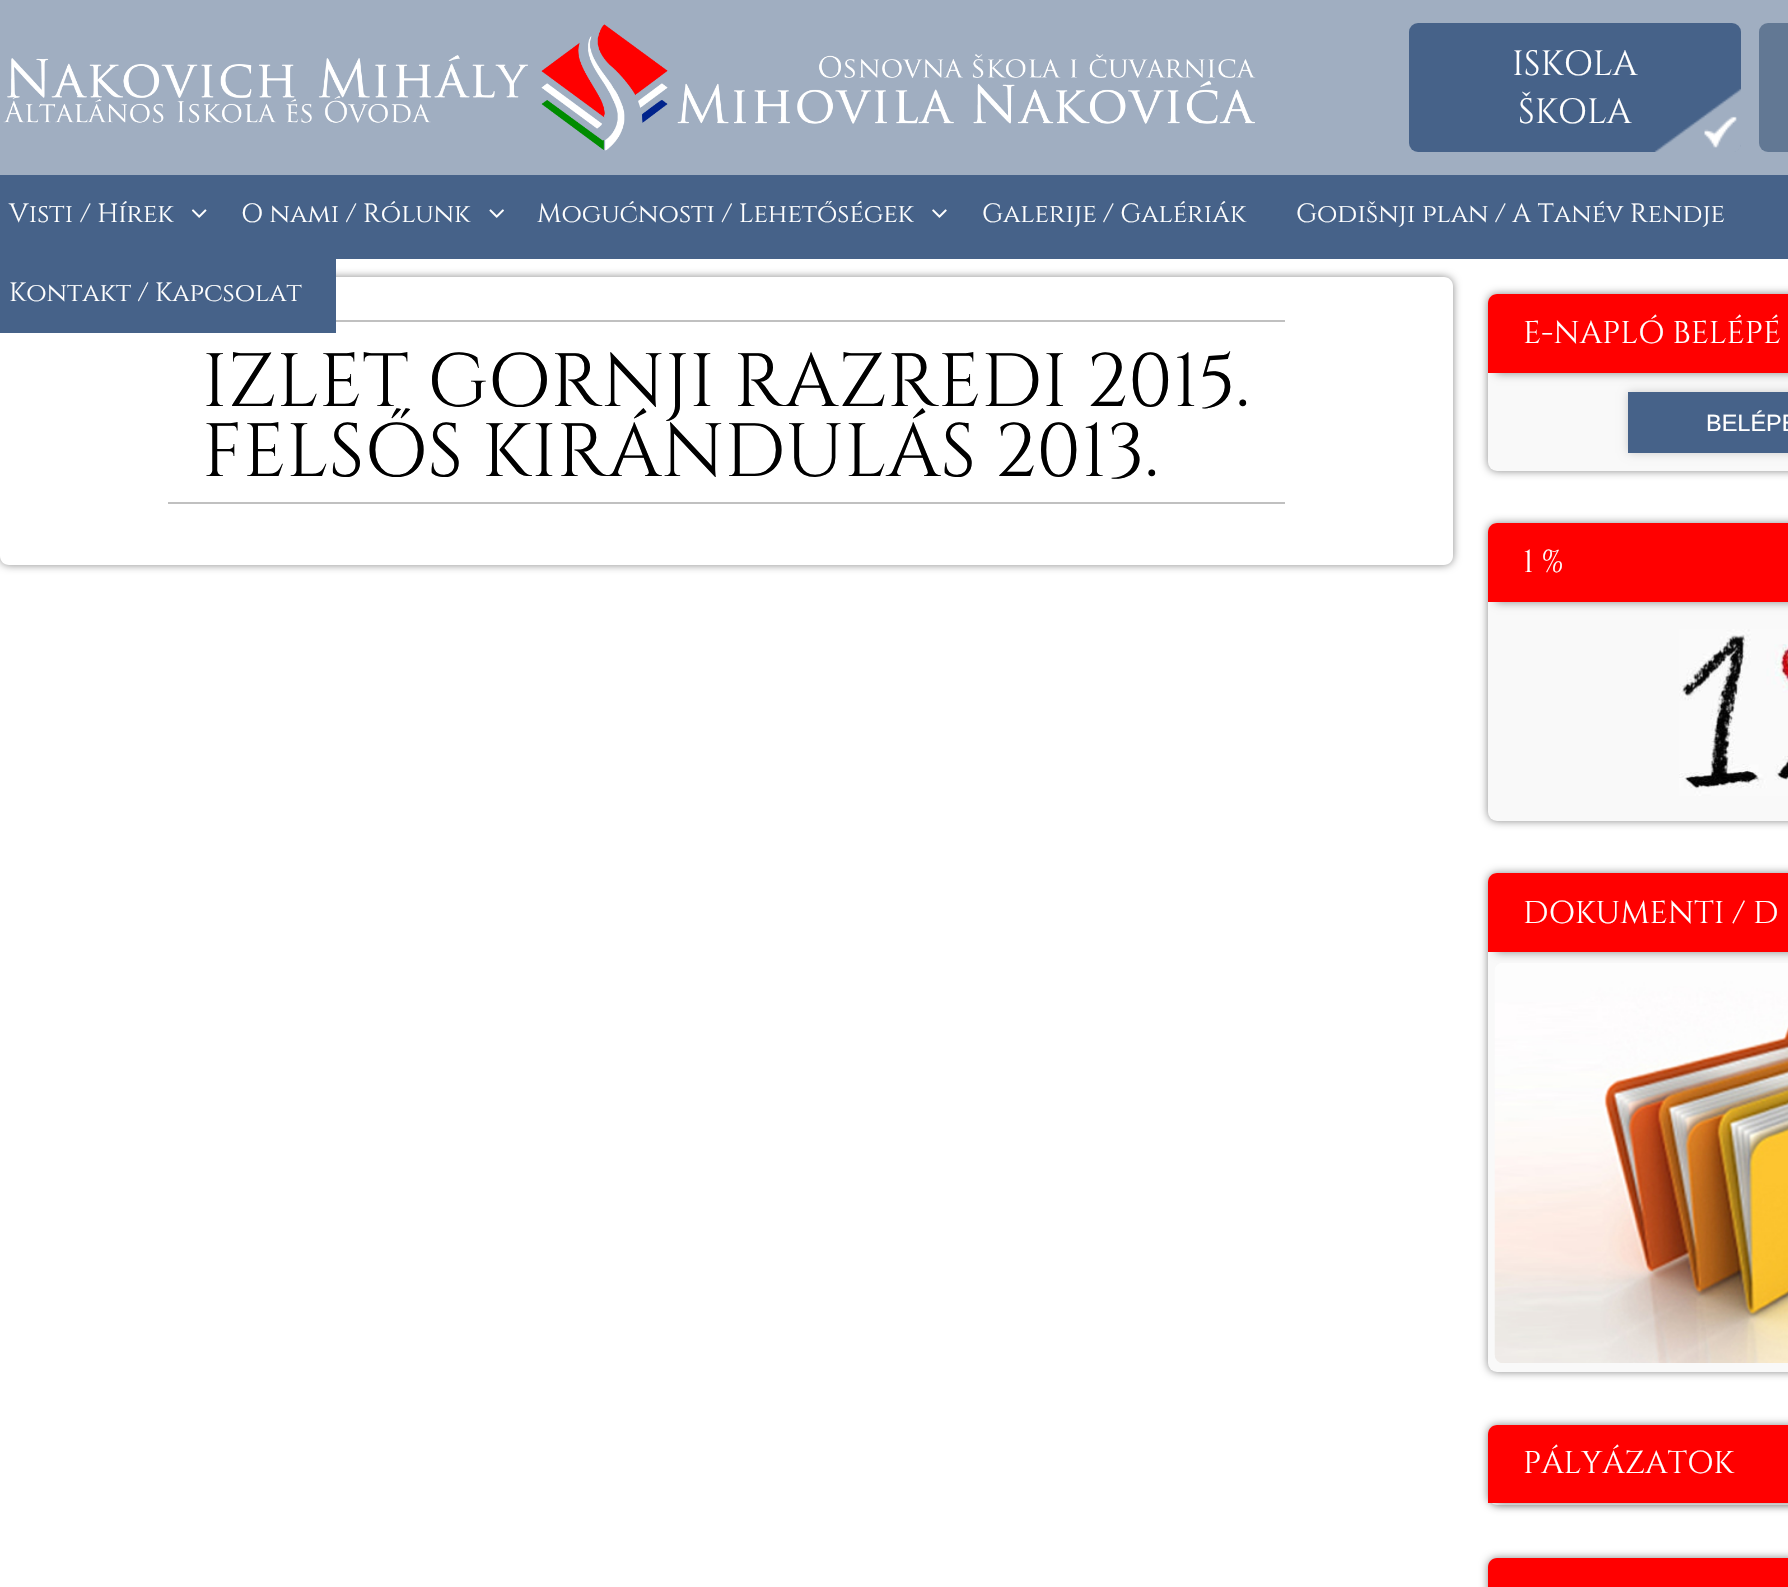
static SkFont makeFont(const char* family, int weight, float size, bool italic = false) {
  SkFontStyle style(weight, SkFontStyle::kNormal_Width,
    italic ? SkFontStyle::kItalic_Slant : SkFontStyle::kUpright_Slant);
  SkFont result(fontMgr->matchFamilyStyle(family, style), size);
  result.setSubpixel(true);
  return result;
}

static void text(SkCanvas* c, const char* s, float x, float y, const SkFont& font, SkColor color) {
  SkPaint ink(SkColor4f::FromColor(color));
  ink.setAntiAlias(true);
  c->drawString(s, x, y, font, ink);
}

static void box(SkCanvas* c, float l, float t, float r, float b, SkColor color) {
  SkPaint ink(SkColor4f::FromColor(color));
  ink.setAntiAlias(true);
  c->drawRect(SkRect::MakeLTRB(l, t, r, b), ink);
}

static void roundBox(SkCanvas* c, float l, float t, float r, float b, float radius, SkColor color) {
  SkPaint ink(SkColor4f::FromColor(color));
  ink.setAntiAlias(true);
  c->drawRoundRect(SkRect::MakeLTRB(l, t, r, b), radius, radius, ink);
}

static void picture(SkCanvas* c, const char* path, float l, float t, float r, float b) {
  auto image = SkImages::DeferredFromEncodedData(SkData::MakeFromFileName(path));
  c->drawImageRect(image, SkRect::MakeLTRB(l, t, r, b), SkSamplingOptions());
}

void draw(SkCanvas* c) {
  SkPaint paint;
  paint.setAntiAlias(true);
  c->clear(0xffffffff);
  box(c, 0, 0, 1788, 175, 0xffa0aec1);
  picture(c, "img_01.png", 3, 24, 1256, 151);
  roundBox(c, 1409, 23, 1741, 152, 9, 0xff466289);
  picture(c, "img_02.png", 1654, 88, 1741, 152);
  SkFont face1 = makeFont("Cinzel", 400, 35);
  text(c, "ISKOLA", 1512, 75, face1, 0xffffffff);
  text(c, "ŠKOLA", 1518, 123, face1, 0xffffffff);
  roundBox(c, 1759, 23, 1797, 152, 9, 0xff627894);
  box(c, 0, 175, 1788, 259, 0xff466289);
  SkFont face2 = makeFont("Cinzel", 400, 26.25f);
  text(c, "Visti / Hírek", 9, 222, face2, 0xffffffff);
  picture(c, "img_03.png", 191, 209, 207, 218);
  text(c, "O nami / Rólunk", 241, 222, face2, 0xffffffff);
  picture(c, "img_04.png", 489, 209, 504, 218);
  text(c, "Mogućnosti / Lehetőségek", 537, 222, face2, 0xffffffff);
  picture(c, "img_05.png", 932, 209, 947, 218);
  text(c, "Galerije / Galériák", 982, 222, face2, 0xffffffff);
  text(c, "Godišnji plan / A Tanév Rendje", 1296, 222, face2, 0xffffffff);
  c->save();
  c->clipPath(SkPathBuilder(SkPathFillType::kEvenOdd).moveTo(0, 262).lineTo(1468, 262).lineTo(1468, 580).lineTo(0, 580).close().moveTo(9, 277).lineTo(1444, 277).cubicTo(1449, 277, 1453, 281, 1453, 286).lineTo(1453, 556).cubicTo(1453, 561, 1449, 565, 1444, 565).lineTo(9, 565).cubicTo(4, 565, 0, 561, 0, 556).lineTo(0, 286).cubicTo(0, 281, 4, 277, 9, 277).close().detach(), true);
  paint.setColor(0xff888888);
  paint.setMaskFilter(SkMaskFilter::MakeBlur(kNormal_SkBlurStyle, 4.5f));
  c->drawRoundRect(SkRect::MakeLTRB(0, 277, 1453, 565), 9, 9, paint);
  paint.setMaskFilter(nullptr);
  c->restore();
  box(c, 0, 259, 336, 333, 0xff466289);
  text(c, "Kontakt / Kapcsolat", 9, 301, face2, 0xffffffff);
  box(c, 336, 320, 1285, 322, 0xffc0c0c0);
  box(c, 168, 502, 1285, 504, 0xffc0c0c0);
  SkFont face3 = makeFont("Cinzel", 400, 75.25f);
  text(c, "IZLET GORNJI RAZREDI 2015.", 202, 406, face3, 0xff000000);
  text(c, "FELSŐS KIRÁNDULÁS 2013.", 202, 476, face3, 0xff000000);
  paint.setMaskFilter(SkMaskFilter::MakeBlur(kNormal_SkBlurStyle, 4.5f));
  c->drawRoundRect(SkRect::MakeLTRB(1488, 294, 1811, 471), 9, 9, paint);
  paint.setMaskFilter(nullptr);
  roundBox(c, 1488, 294, 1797, 471, 9, 0xfff9f9f9);
  paint.setMaskFilter(SkMaskFilter::MakeBlur(kNormal_SkBlurStyle, 4.5f));
  c->drawRect(SkRect::MakeLTRB(1496, 312, 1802, 373), paint);
  paint.setMaskFilter(nullptr);
  paint.setColor(0xffff0000);
  c->drawPath(SkPathBuilder().moveTo(1497, 294).lineTo(1788, 294).cubicTo(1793, 294, 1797, 298, 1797, 303).lineTo(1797, 373).lineTo(1488, 373).lineTo(1488, 303).cubicTo(1488, 298, 1492, 294, 1497, 294).close().detach(), paint);
  SkFont face4 = makeFont("Cinzel", 400, 31.5f);
  text(c, "E-NAPLÓ BELÉPÉ", 1523, 343, face4, 0xffffffff);
  paint.setColor(0xffcccccc);
  paint.setMaskFilter(SkMaskFilter::MakeBlur(kNormal_SkBlurStyle, 4.5f));
  c->drawRect(SkRect::MakeLTRB(1628, 392, 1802, 453), paint);
  paint.setMaskFilter(nullptr);
  box(c, 1628, 392, 1788, 453, 0xff466289);
  SkFont face5 = makeFont("Liberation Sans", 400, 23.5f);
  text(c, "BELÉPÉ", 1706, 431, face5, 0xffffffff);
  paint.setColor(0xff888888);
  paint.setMaskFilter(SkMaskFilter::MakeBlur(kNormal_SkBlurStyle, 4.5f));
  c->drawRoundRect(SkRect::MakeLTRB(1488, 523, 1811, 821), 9, 9, paint);
  paint.setMaskFilter(nullptr);
  roundBox(c, 1488, 523, 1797, 821, 9, 0xfff9f9f9);
  paint.setMaskFilter(SkMaskFilter::MakeBlur(kNormal_SkBlurStyle, 4.5f));
  c->drawRect(SkRect::MakeLTRB(1496, 541, 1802, 602), paint);
  paint.setMaskFilter(nullptr);
  paint.setColor(0xffff0000);
  c->drawPath(SkPathBuilder().moveTo(1497, 523).lineTo(1788, 523).cubicTo(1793, 523, 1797, 527, 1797, 532).lineTo(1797, 602).lineTo(1488, 602).lineTo(1488, 532).cubicTo(1488, 527, 1492, 523, 1497, 523).close().detach(), paint);
  text(c, "1 %", 1523, 572, face4, 0xffffffff);
  picture(c, "img_06.png", 1679, 629, 1788, 796);
  paint.setColor(0xff888888);
  paint.setMaskFilter(SkMaskFilter::MakeBlur(kNormal_SkBlurStyle, 4.5f));
  c->drawRoundRect(SkRect::MakeLTRB(1488, 873, 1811, 1372), 9, 9, paint);
  paint.setMaskFilter(nullptr);
  roundBox(c, 1488, 873, 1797, 1372, 9, 0xfff9f9f9);
  paint.setMaskFilter(SkMaskFilter::MakeBlur(kNormal_SkBlurStyle, 4.5f));
  c->drawRect(SkRect::MakeLTRB(1496, 891, 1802, 952), paint);
  paint.setMaskFilter(nullptr);
  paint.setColor(0xffff0000);
  c->drawPath(SkPathBuilder().moveTo(1497, 873).lineTo(1788, 873).cubicTo(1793, 873, 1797, 877, 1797, 882).lineTo(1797, 952).lineTo(1488, 952).lineTo(1488, 882).cubicTo(1488, 877, 1492, 873, 1497, 873).close().detach(), paint);
  text(c, "DOKUMENTI / D", 1523, 923, face4, 0xffffffff);
  picture(c, "img_07.png", 1494, 963, 1788, 1363);
  paint.setColor(0xff888888);
  paint.setMaskFilter(SkMaskFilter::MakeBlur(kNormal_SkBlurStyle, 4.5f));
  c->drawRoundRect(SkRect::MakeLTRB(1488, 1425, 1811, 1505), 9, 9, paint);
  paint.setMaskFilter(nullptr);
  roundBox(c, 1488, 1425, 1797, 1505, 9, 0xfff9f9f9);
  paint.setMaskFilter(SkMaskFilter::MakeBlur(kNormal_SkBlurStyle, 4.5f));
  c->drawRect(SkRect::MakeLTRB(1496, 1442, 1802, 1503), paint);
  paint.setMaskFilter(nullptr);
  paint.setColor(0xffff0000);
  c->drawPath(SkPathBuilder().moveTo(1497, 1425).lineTo(1788, 1425).cubicTo(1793, 1425, 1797, 1429, 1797, 1434).lineTo(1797, 1503).lineTo(1488, 1503).lineTo(1488, 1434).cubicTo(1488, 1429, 1492, 1425, 1497, 1425).close().detach(), paint);
  text(c, "PÁLYÁZATOK", 1523, 1473, face4, 0xffffffff);
  paint.setColor(0xff888888);
  paint.setMaskFilter(SkMaskFilter::MakeBlur(kNormal_SkBlurStyle, 4.5f));
  c->drawRoundRect(SkRect::MakeLTRB(1488, 1558, 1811, 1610), 9, 9, paint);
  paint.setMaskFilter(nullptr);
  paint.setColor(0xffff0000);
  c->drawPath(SkPathBuilder().moveTo(1497, 1558).lineTo(1788, 1558).cubicTo(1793, 1558, 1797, 1562, 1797, 1567).lineTo(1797, 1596).lineTo(1488, 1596).lineTo(1488, 1567).cubicTo(1488, 1562, 1492, 1558, 1497, 1558).close().detach(), paint);
}
